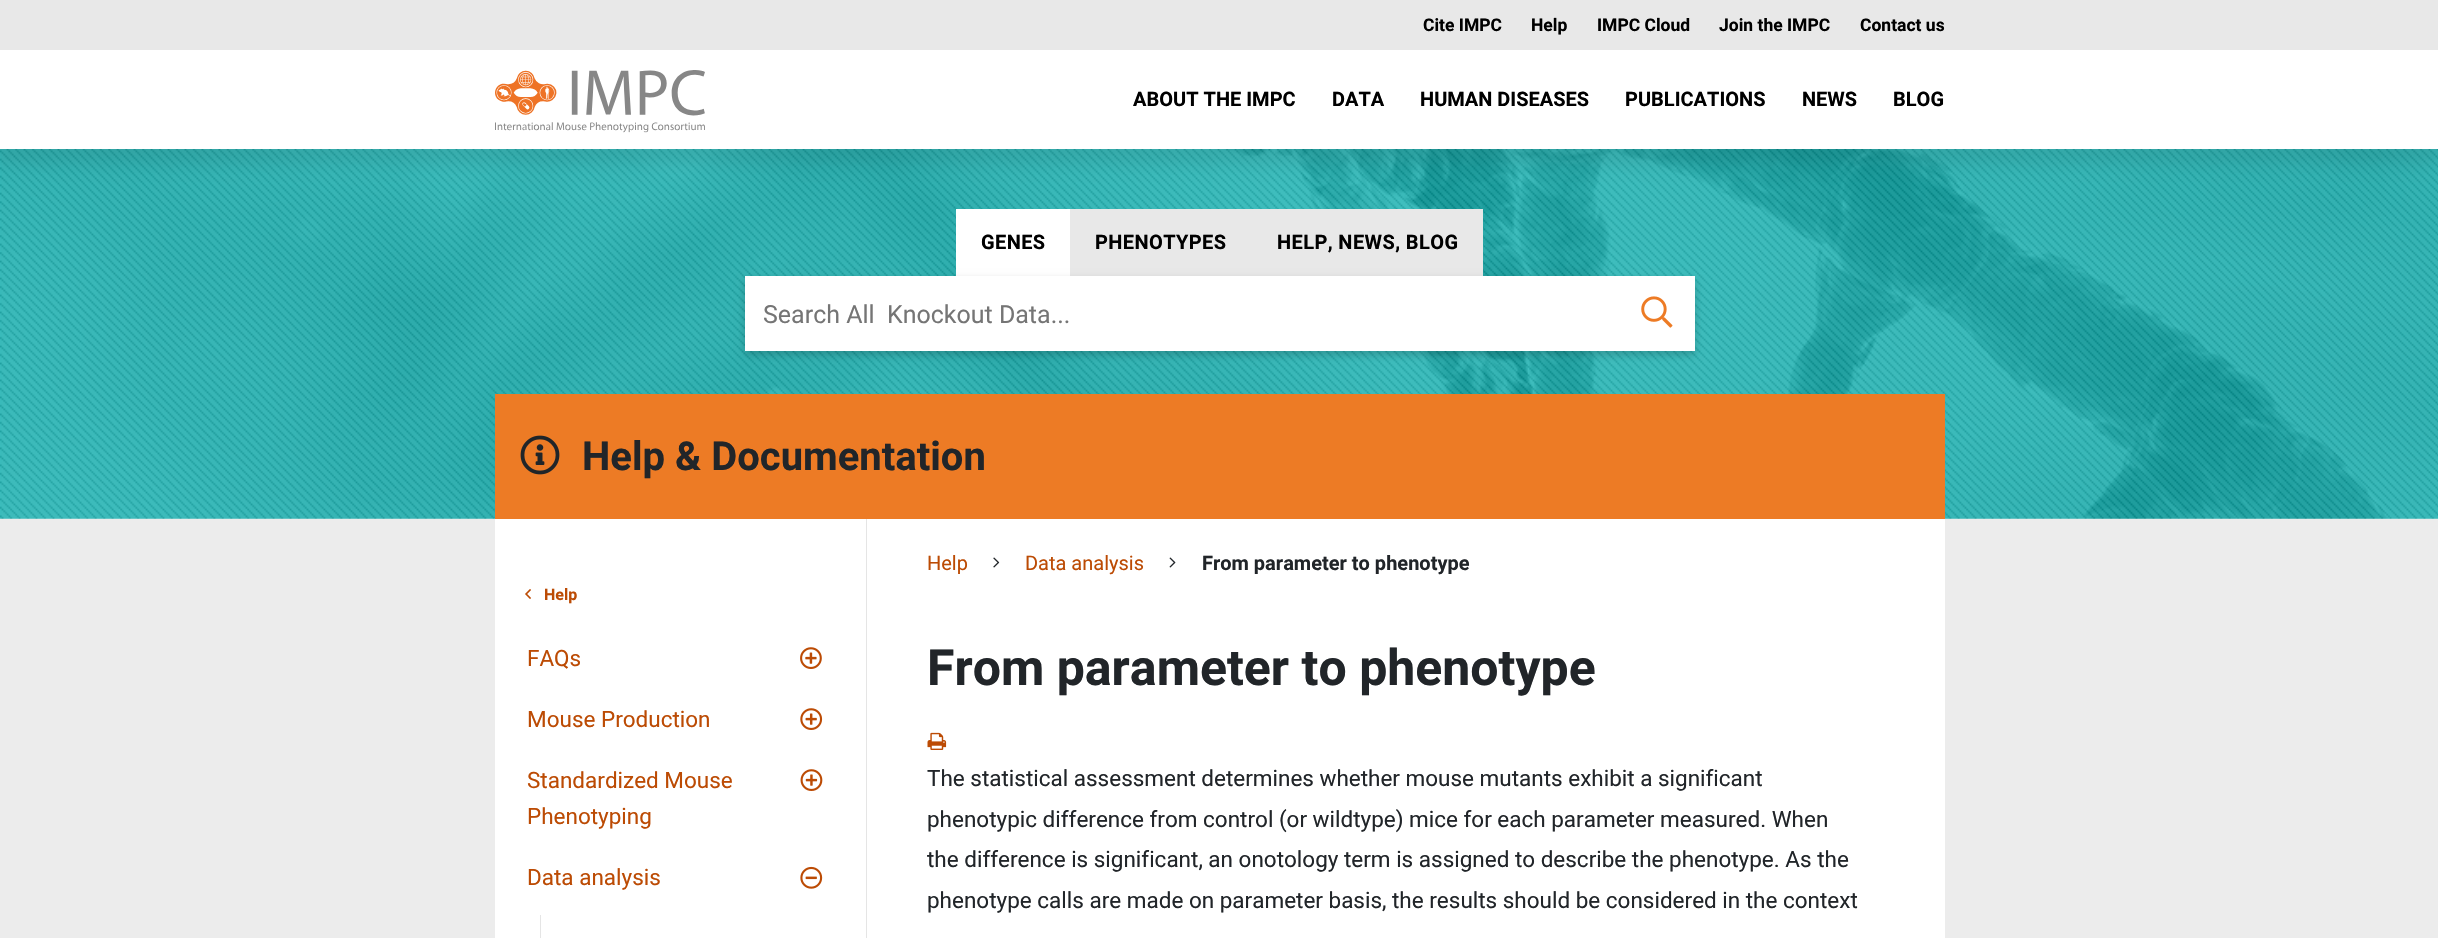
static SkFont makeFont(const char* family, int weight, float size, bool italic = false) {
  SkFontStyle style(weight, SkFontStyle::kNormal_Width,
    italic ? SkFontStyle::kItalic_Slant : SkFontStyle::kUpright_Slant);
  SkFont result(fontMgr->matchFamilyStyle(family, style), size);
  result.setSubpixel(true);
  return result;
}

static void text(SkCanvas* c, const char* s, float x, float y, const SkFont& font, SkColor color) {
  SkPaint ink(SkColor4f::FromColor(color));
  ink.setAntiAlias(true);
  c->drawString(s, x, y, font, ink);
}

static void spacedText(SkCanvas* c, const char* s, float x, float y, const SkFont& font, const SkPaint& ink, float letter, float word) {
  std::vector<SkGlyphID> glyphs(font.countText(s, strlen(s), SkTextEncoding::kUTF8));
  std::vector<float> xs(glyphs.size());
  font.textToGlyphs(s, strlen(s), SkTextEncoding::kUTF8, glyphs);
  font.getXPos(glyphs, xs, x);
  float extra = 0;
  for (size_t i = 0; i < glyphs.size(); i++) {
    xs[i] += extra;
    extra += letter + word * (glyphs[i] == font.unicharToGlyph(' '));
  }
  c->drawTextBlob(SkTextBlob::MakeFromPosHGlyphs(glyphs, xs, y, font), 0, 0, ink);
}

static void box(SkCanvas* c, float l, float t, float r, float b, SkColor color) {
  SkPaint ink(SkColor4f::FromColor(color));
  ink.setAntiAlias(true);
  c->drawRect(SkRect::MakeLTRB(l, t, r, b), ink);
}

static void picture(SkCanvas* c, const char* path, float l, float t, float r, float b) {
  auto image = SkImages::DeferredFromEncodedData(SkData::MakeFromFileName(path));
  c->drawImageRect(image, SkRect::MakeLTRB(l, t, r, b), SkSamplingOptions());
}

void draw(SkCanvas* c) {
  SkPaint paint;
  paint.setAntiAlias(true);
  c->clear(0xffececec);
  box(c, 0, 0, 2438, 50, 0xffe8e8e8);
  SkFont face1 = makeFont("Roboto", 700, 17.5f);
  text(c, "Cite IMPC", 1423, 31, face1, 0xff000000);
  text(c, "Help", 1531, 31, face1, 0xff000000);
  text(c, "IMPC Cloud", 1597, 31, face1, 0xff000000);
  text(c, "Join the IMPC", 1719, 31, face1, 0xff000000);
  text(c, "Contact us", 1860, 31, face1, 0xff000000);
  picture(c, "img_02.png", 0, 149, 2438, 519);
  paint.setColor(0x4d000000);
  paint.setMaskFilter(SkMaskFilter::MakeBlur(kNormal_SkBlurStyle, 12.5f));
  c->drawRect(SkRect::MakeLTRB(-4, 145, 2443, 153), paint);
  paint.setMaskFilter(nullptr);
  box(c, 0, 50, 2438, 149, 0xffffffff);
  picture(c, "img_01.png", 495, 70, 705, 133);
  SkFont face2 = makeFont("Roboto", 700, 20);
  text(c, "ABOUT THE IMPC", 1133, 106, face2, 0xff000000);
  text(c, "DATA", 1332, 106, face2, 0xff000000);
  text(c, "HUMAN DISEASES", 1420, 106, face2, 0xff000000);
  text(c, "PUBLICATIONS", 1625, 106, face2, 0xff000000);
  text(c, "NEWS", 1802, 106, face2, 0xff000000);
  text(c, "BLOG", 1893, 106, face2, 0xff000000);
  box(c, 956, 209, 1070, 276, 0xffffffff);
  paint.setColor(0xff000000);
  spacedText(c, "GENES", 981, 249, face2, paint, 0.4f, 0);
  box(c, 1070, 209, 1483, 276, 0xffe8e8e8);
  spacedText(c, "PHENOTYPES", 1095, 249, face2, paint, 0.4f, 0);
  spacedText(c, "HELP, NEWS, BLOG", 1277, 249, face2, paint, 0.4f, 0);
  paint.setColor(0x33000000);
  paint.setMaskFilter(SkMaskFilter::MakeBlur(kNormal_SkBlurStyle, 4));
  c->drawRect(SkRect::MakeLTRB(745, 280, 1695, 355), paint);
  paint.setMaskFilter(nullptr);
  box(c, 745, 276, 1695, 351, 0xffffffff);
  SkFont face3 = makeFont("Roboto", 400, 25);
  text(c, "Search All  Knockout Data...", 763, 323, face3, 0xff757575);
  picture(c, "img_03.png", 1641, 296, 1673, 328);
  box(c, 495, 394, 1945, 519, 0xffed7b25);
  picture(c, "img_04.png", 520, 435, 560, 475);
  SkFont face4 = makeFont("Roboto", 700, 40);
  text(c, "Help & Documentation", 582, 470, face4, 0xff212529);
  box(c, 495, 519, 1945, 938, 0xffffffff);
  box(c, 866, 519, 867, 938, 0xffe5e5e5);
  picture(c, "img_05.png", 525, 589, 531, 599);
  SkFont face5 = makeFont("Roboto", 700, 16);
  text(c, "Help", 544, 600, face5, 0xffbc4b04);
  SkFont face6 = makeFont("Roboto", 400, 22.5f);
  text(c, "FAQs", 527, 666, face6, 0xffbc4b04);
  picture(c, "img_06.png", 800, 647, 822, 669);
  text(c, "Mouse Production", 527, 727, face6, 0xffbc4b04);
  picture(c, "img_07.png", 800, 708, 823, 730);
  text(c, "Standardized Mouse", 527, 788, face6, 0xffbc4b04);
  picture(c, "img_08.png", 800, 769, 823, 791);
  text(c, "Phenotyping", 527, 824, face6, 0xffbc4b04);
  text(c, "Data analysis", 527, 885, face6, 0xffbc4b04);
  picture(c, "img_09.png", 800, 866, 823, 889);
  box(c, 540, 915, 541, 938, 0xffe5e5e5);
  SkFont face7 = makeFont("Roboto", 400, 20);
  text(c, "Help", 927, 570, face7, 0xffbc4b04);
  picture(c, "img_10.png", 993, 557, 1000, 568);
  text(c, "Data analysis", 1025, 570, face7, 0xffbc4b04);
  picture(c, "img_11.png", 1169, 557, 1176, 568);
  text(c, "From parameter to phenotype", 1202, 570, face2, 0xff212529);
  SkFont face8 = makeFont("Roboto", 700, 50);
  text(c, "From parameter to phenotype", 927, 685, face8, 0xff212529);
  picture(c, "img_12.png", 927, 732, 947, 750);
  text(c, "The statistical assessment determines whether mouse mutants exhibit a significant", 927, 786, face6, 0xff212529);
  text(c, "phenotypic difference from control (or wildtype) mice for each parameter measured. When", 927, 827, face6, 0xff212529);
  text(c, "the difference is significant, an onotology term is assigned to describe the phenotype. As the", 927, 867, face6, 0xff212529);
  text(c, "phenotype calls are made on parameter basis, the results should be considered in the context", 927, 908, face6, 0xff212529);
}
